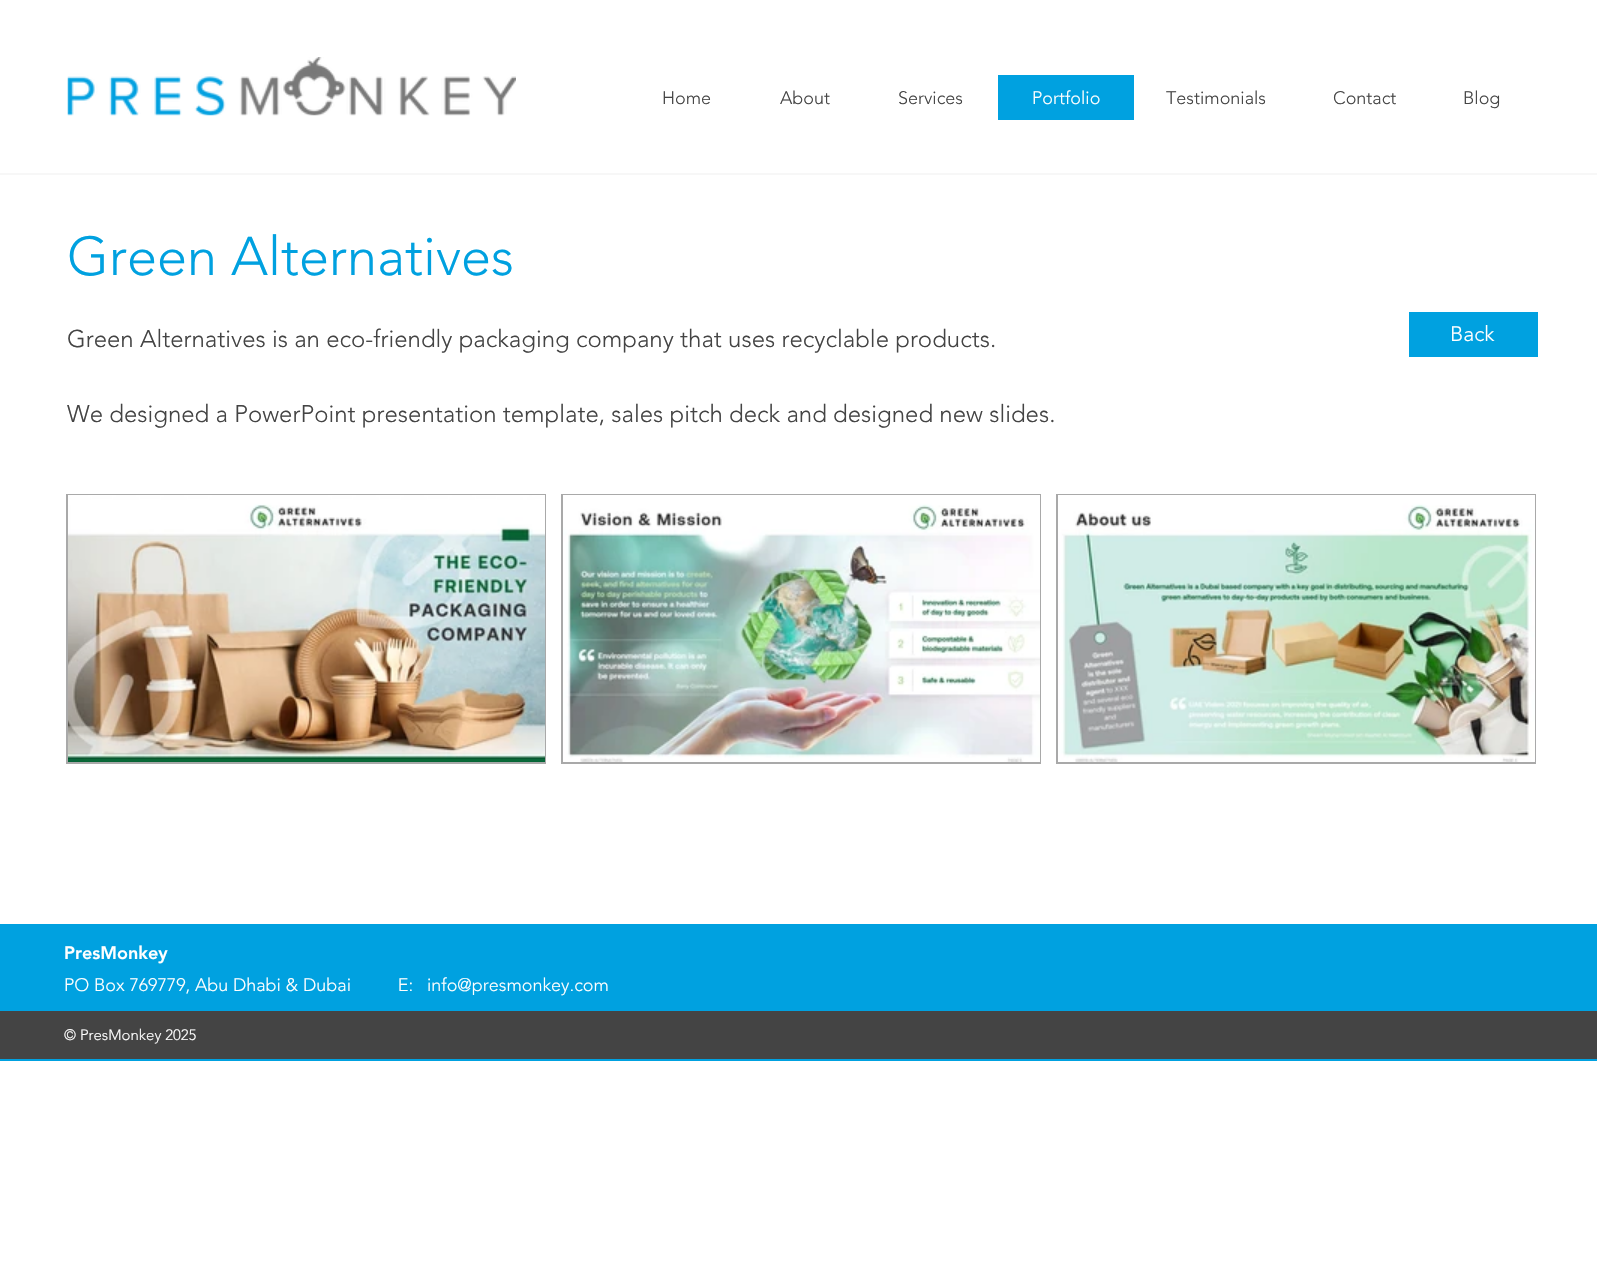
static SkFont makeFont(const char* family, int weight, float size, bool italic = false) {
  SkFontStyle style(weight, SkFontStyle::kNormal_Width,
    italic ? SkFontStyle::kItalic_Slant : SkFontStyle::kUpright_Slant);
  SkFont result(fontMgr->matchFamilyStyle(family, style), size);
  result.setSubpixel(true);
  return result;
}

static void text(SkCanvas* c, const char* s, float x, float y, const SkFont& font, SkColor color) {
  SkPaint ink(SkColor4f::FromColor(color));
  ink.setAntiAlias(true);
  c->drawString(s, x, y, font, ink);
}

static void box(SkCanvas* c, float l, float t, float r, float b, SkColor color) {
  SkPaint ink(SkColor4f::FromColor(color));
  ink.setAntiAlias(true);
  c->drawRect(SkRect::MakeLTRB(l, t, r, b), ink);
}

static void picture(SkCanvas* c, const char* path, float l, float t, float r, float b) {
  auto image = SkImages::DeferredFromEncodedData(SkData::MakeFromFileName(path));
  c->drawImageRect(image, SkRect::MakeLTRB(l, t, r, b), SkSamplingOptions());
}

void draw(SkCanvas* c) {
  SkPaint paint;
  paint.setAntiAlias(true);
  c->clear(0xffffffff);
  picture(c, "img_01.png", 67, 57, 516, 116);
  SkFont face1 = makeFont("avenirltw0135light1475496", 300, 18);
  text(c, "Home", 662, 104, face1, 0xff444444);
  text(c, "About", 780, 104, face1, 0xff444444);
  text(c, "Services", 898, 104, face1, 0xff444444);
  box(c, 998, 75, 1134, 120, 0xff00a1e0);
  text(c, "Portfolio", 1032, 104, face1, 0xffffffff);
  text(c, "Testimonials", 1166, 104, face1, 0xff444444);
  text(c, "Contact", 1333, 104, face1, 0xff444444);
  text(c, "Blog", 1463, 104, face1, 0xff444444);
  box(c, 0, 173, 1597, 175, 0xfff7f7f7);
  SkFont face2 = makeFont("avenirltw0135light1475496", 300, 54);
  text(c, "Green Alternatives", 67, 275, face2, 0xff00a1e0);
  SkFont face3 = makeFont("avenirltw0135light1475496", 300, 24);
  text(c, "Green Alternatives is an eco-friendly packaging company that uses recyclable products.", 67, 347, face3, 0xff444444);
  text(c, "We designed a PowerPoint presentation template, sales pitch deck and designed new slides.", 67, 422, face3, 0xff444444);
  box(c, 1409, 312, 1538, 357, 0xff00a1e0);
  SkFont face4 = makeFont("avenirltw0135light1475496", 300, 21);
  text(c, "Back", 1450, 341, face4, 0xffffffff);
  paint.setStyle(SkPaint::kStroke_Style);
  paint.setStrokeWidth(2);
  paint.setColor(0xffa9a9a9);
  c->drawRect(SkRect::MakeLTRB(67, 495, 545, 763), paint);
  picture(c, "img_02.png", 68, 495, 545, 762);
  c->drawRect(SkRect::MakeLTRB(562, 495, 1040, 763), paint);
  picture(c, "img_03.png", 563, 495, 1040, 762);
  c->drawRect(SkRect::MakeLTRB(1057, 495, 1535, 763), paint);
  picture(c, "img_04.png", 1058, 495, 1535, 762);
  box(c, 0, 924, 1597, 1061, 0xff00a1e0);
  SkFont face5 = makeFont("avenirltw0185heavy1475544", 900, 18);
  text(c, "PresMonkey", 64, 959, face5, 0xffffffff);
  text(c, "PO Box 769779, Abu Dhabi & Dubai          E:", 64, 991, face1, 0xffffffff);
  text(c, "info@presmonkey.com", 427, 991, face1, 0xffffffff);
  box(c, 0, 1011, 1597, 1059, 0xff444444);
  SkFont face6 = makeFont("avenirltw0135light1475496", 300, 15);
  text(c, "© PresMonkey 2025", 64, 1040, face6, 0xffffffff);
}
